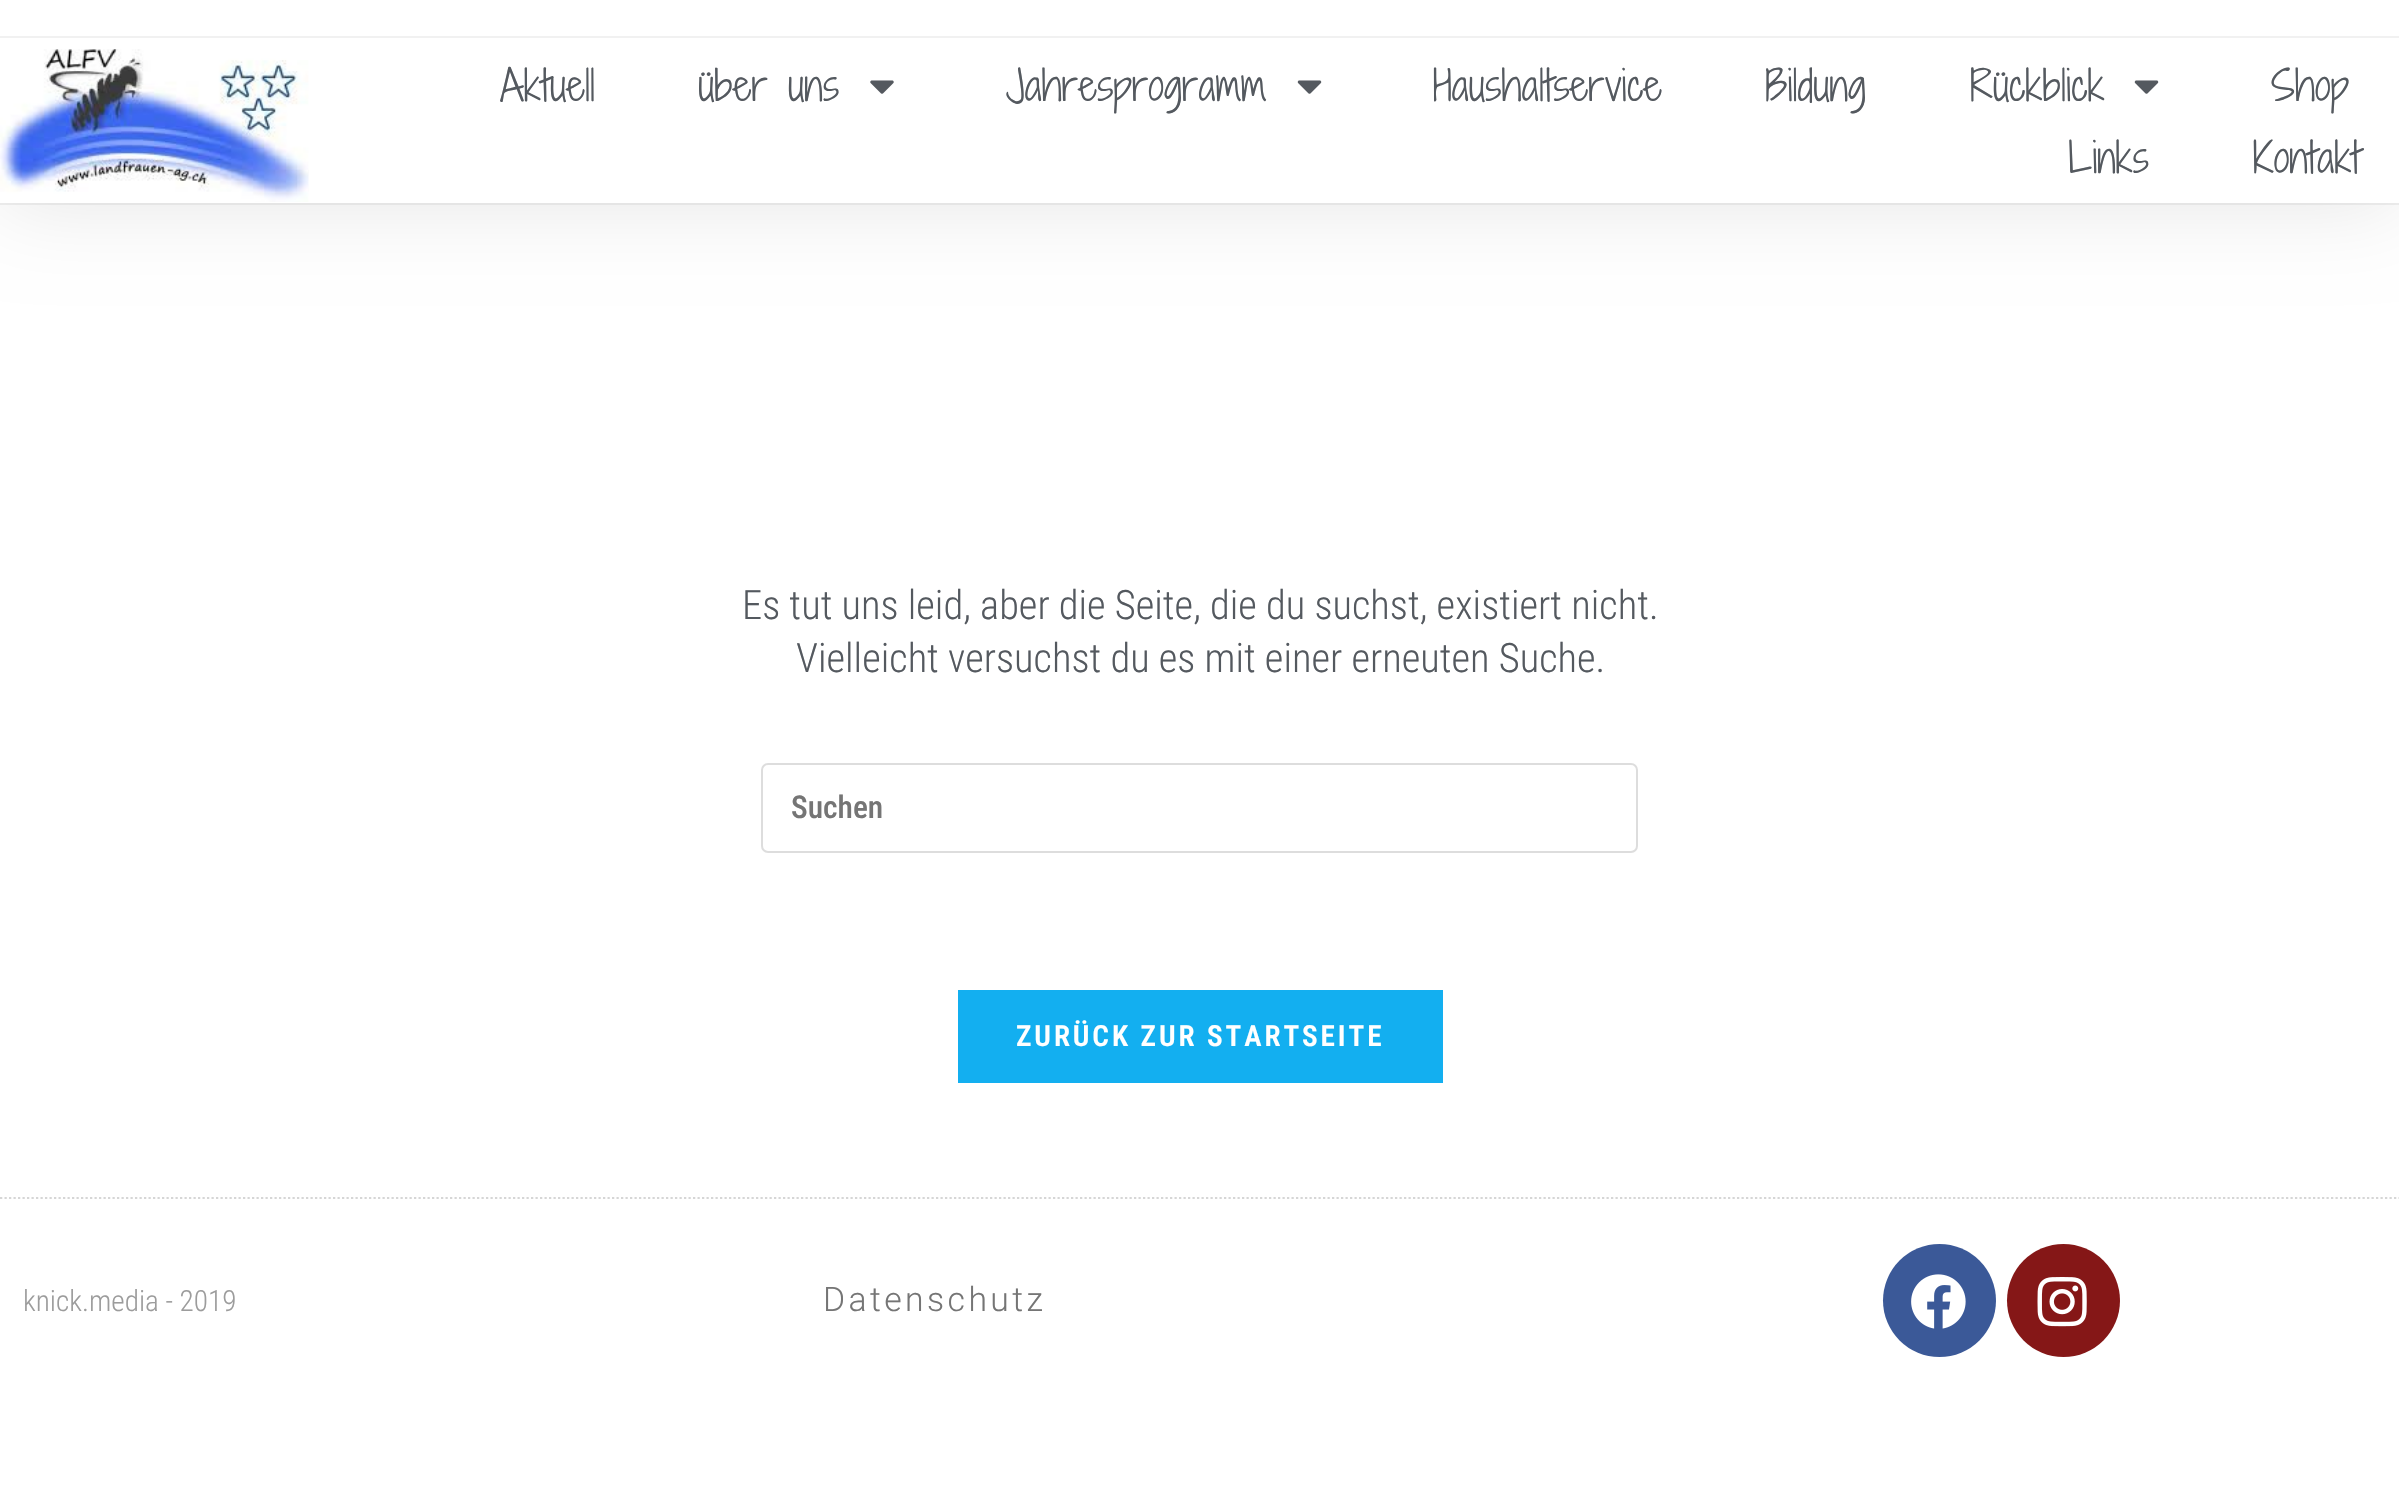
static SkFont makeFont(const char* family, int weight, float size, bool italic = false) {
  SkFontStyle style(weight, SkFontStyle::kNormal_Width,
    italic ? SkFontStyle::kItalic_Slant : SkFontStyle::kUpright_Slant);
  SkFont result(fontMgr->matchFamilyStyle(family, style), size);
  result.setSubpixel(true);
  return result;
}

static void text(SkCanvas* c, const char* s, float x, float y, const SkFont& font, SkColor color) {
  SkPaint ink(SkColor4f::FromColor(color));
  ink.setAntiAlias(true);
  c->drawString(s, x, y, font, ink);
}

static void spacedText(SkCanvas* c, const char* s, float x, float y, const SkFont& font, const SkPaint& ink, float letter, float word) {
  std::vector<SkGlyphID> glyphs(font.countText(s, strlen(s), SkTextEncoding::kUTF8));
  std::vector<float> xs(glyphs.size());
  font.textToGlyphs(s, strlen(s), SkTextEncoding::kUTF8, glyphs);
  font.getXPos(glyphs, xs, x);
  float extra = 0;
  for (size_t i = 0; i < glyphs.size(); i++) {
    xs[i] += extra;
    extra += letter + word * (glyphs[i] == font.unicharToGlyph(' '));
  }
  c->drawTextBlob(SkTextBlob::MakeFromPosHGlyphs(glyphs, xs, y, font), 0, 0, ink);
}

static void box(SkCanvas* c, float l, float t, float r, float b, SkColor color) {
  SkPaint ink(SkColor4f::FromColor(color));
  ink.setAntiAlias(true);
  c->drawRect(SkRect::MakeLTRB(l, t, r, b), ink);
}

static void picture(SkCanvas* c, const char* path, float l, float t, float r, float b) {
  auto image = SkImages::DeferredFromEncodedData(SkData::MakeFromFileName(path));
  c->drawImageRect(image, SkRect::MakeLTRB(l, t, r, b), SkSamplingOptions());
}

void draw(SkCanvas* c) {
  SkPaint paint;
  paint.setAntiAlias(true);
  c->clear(0xffffffff);
  box(c, 0, 203, 2399, 205, 0xfff1f1f1);
  paint.setColor(0x1a000000);
  paint.setMaskFilter(SkMaskFilter::MakeBlur(kNormal_SkBlurStyle, 43));
  c->drawRect(SkRect::MakeLTRB(0, 38, 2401, 203), paint);
  paint.setMaskFilter(nullptr);
  box(c, 0, 0, 2399, 36, 0xffffffff);
  box(c, 0, 36, 2399, 38, 0xfff1f1f1);
  box(c, 0, 38, 2399, 203, 0xffffffff);
  picture(c, "img_01.png", 0, 49, 309, 202);
  SkFont face1 = makeFont("Shadows Into Light Two", 300, 40.5f);
  text(c, "Aktuell", 500, 101, face1, 0xff54595f);
  text(c, "über uns", 698, 101, face1, 0xff54595f);
  picture(c, "img_02.png", 870, 80, 894, 94);
  text(c, "Jahresprogramm", 1006, 101, face1, 0xff54595f);
  picture(c, "img_03.png", 1297, 80, 1322, 94);
  text(c, "Haushaltservice", 1433, 101, face1, 0xff54595f);
  text(c, "Bildung", 1765, 101, face1, 0xff54595f);
  text(c, "Rückblick", 1970, 101, face1, 0xff54595f);
  picture(c, "img_03.png", 2134, 80, 2159, 94);
  text(c, "Shop", 2271, 101, face1, 0xff54595f);
  text(c, "Links", 2068, 173, face1, 0xff54595f);
  text(c, "Kontakt", 2253, 173, face1, 0xff54595f);
  SkFont face2 = makeFont("Roboto Condensed", 300, 40.5f);
  text(c, "Es tut uns leid, aber die Seite, die du suchst, existiert nicht.", 742, 619, face2, 0xff54595f);
  text(c, "Vielleicht versuchst du es mit einer erneuten Suche.", 796, 672, face2, 0xff54595f);
  paint.setStyle(SkPaint::kStroke_Style);
  paint.setStrokeWidth(2);
  paint.setColor(0xffdddddd);
  c->drawRoundRect(SkRect::MakeLTRB(762, 764, 1637, 852), 6, 6, paint);
  SkFont face3 = makeFont("Roboto Condensed", 500, 31.5f);
  text(c, "Suchen", 791, 818, face3, 0xff757575);
  box(c, 958, 990, 1443, 1083, 0xff13aff0);
  SkFont face4 = makeFont("Roboto Condensed", 600, 29.25f);
  paint.setStyle(SkPaint::kFill_Style);
  paint.setColor(0xffffffff);
  spacedText(c, "ZURÜCK ZUR STARTSEITE", 1016, 1046, face4, paint, 2.9f, 0);
  paint.setStyle(SkPaint::kStroke_Style);
  paint.setStrokeWidth(2.2f);
  paint.setColor(0xffd6d6d6);
  paint.setPathEffect(SkDashPathEffect::Make({{2.25f, 2.25f}}, 0));
  c->drawPath(SkPathBuilder().moveTo(0, 1198).lineTo(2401, 1198).detach(), paint);
  paint.setPathEffect(nullptr);
  SkFont face5 = makeFont("Roboto Condensed", 300, 29.25f);
  text(c, "knick.media - 2019", 23, 1311, face5, 0xff9c9c9c);
  SkFont face6 = makeFont("Roboto", 300, 33.75f);
  paint.setStyle(SkPaint::kFill_Style);
  paint.setColor(0xff757575);
  spacedText(c, "Datenschutz", 823, 1311, face6, paint, 3.4f, 0);
  paint.setColor(0xff3b5998);
  c->drawCircle(1939.5f, 1300.5f, 56.5f, paint);
  picture(c, "img_04.png", 1911, 1274, 1966, 1329);
  paint.setColor(0xff851717);
  c->drawCircle(2063.5f, 1300.5f, 56.5f, paint);
  picture(c, "img_05.png", 2037, 1277, 2087, 1327);
}
